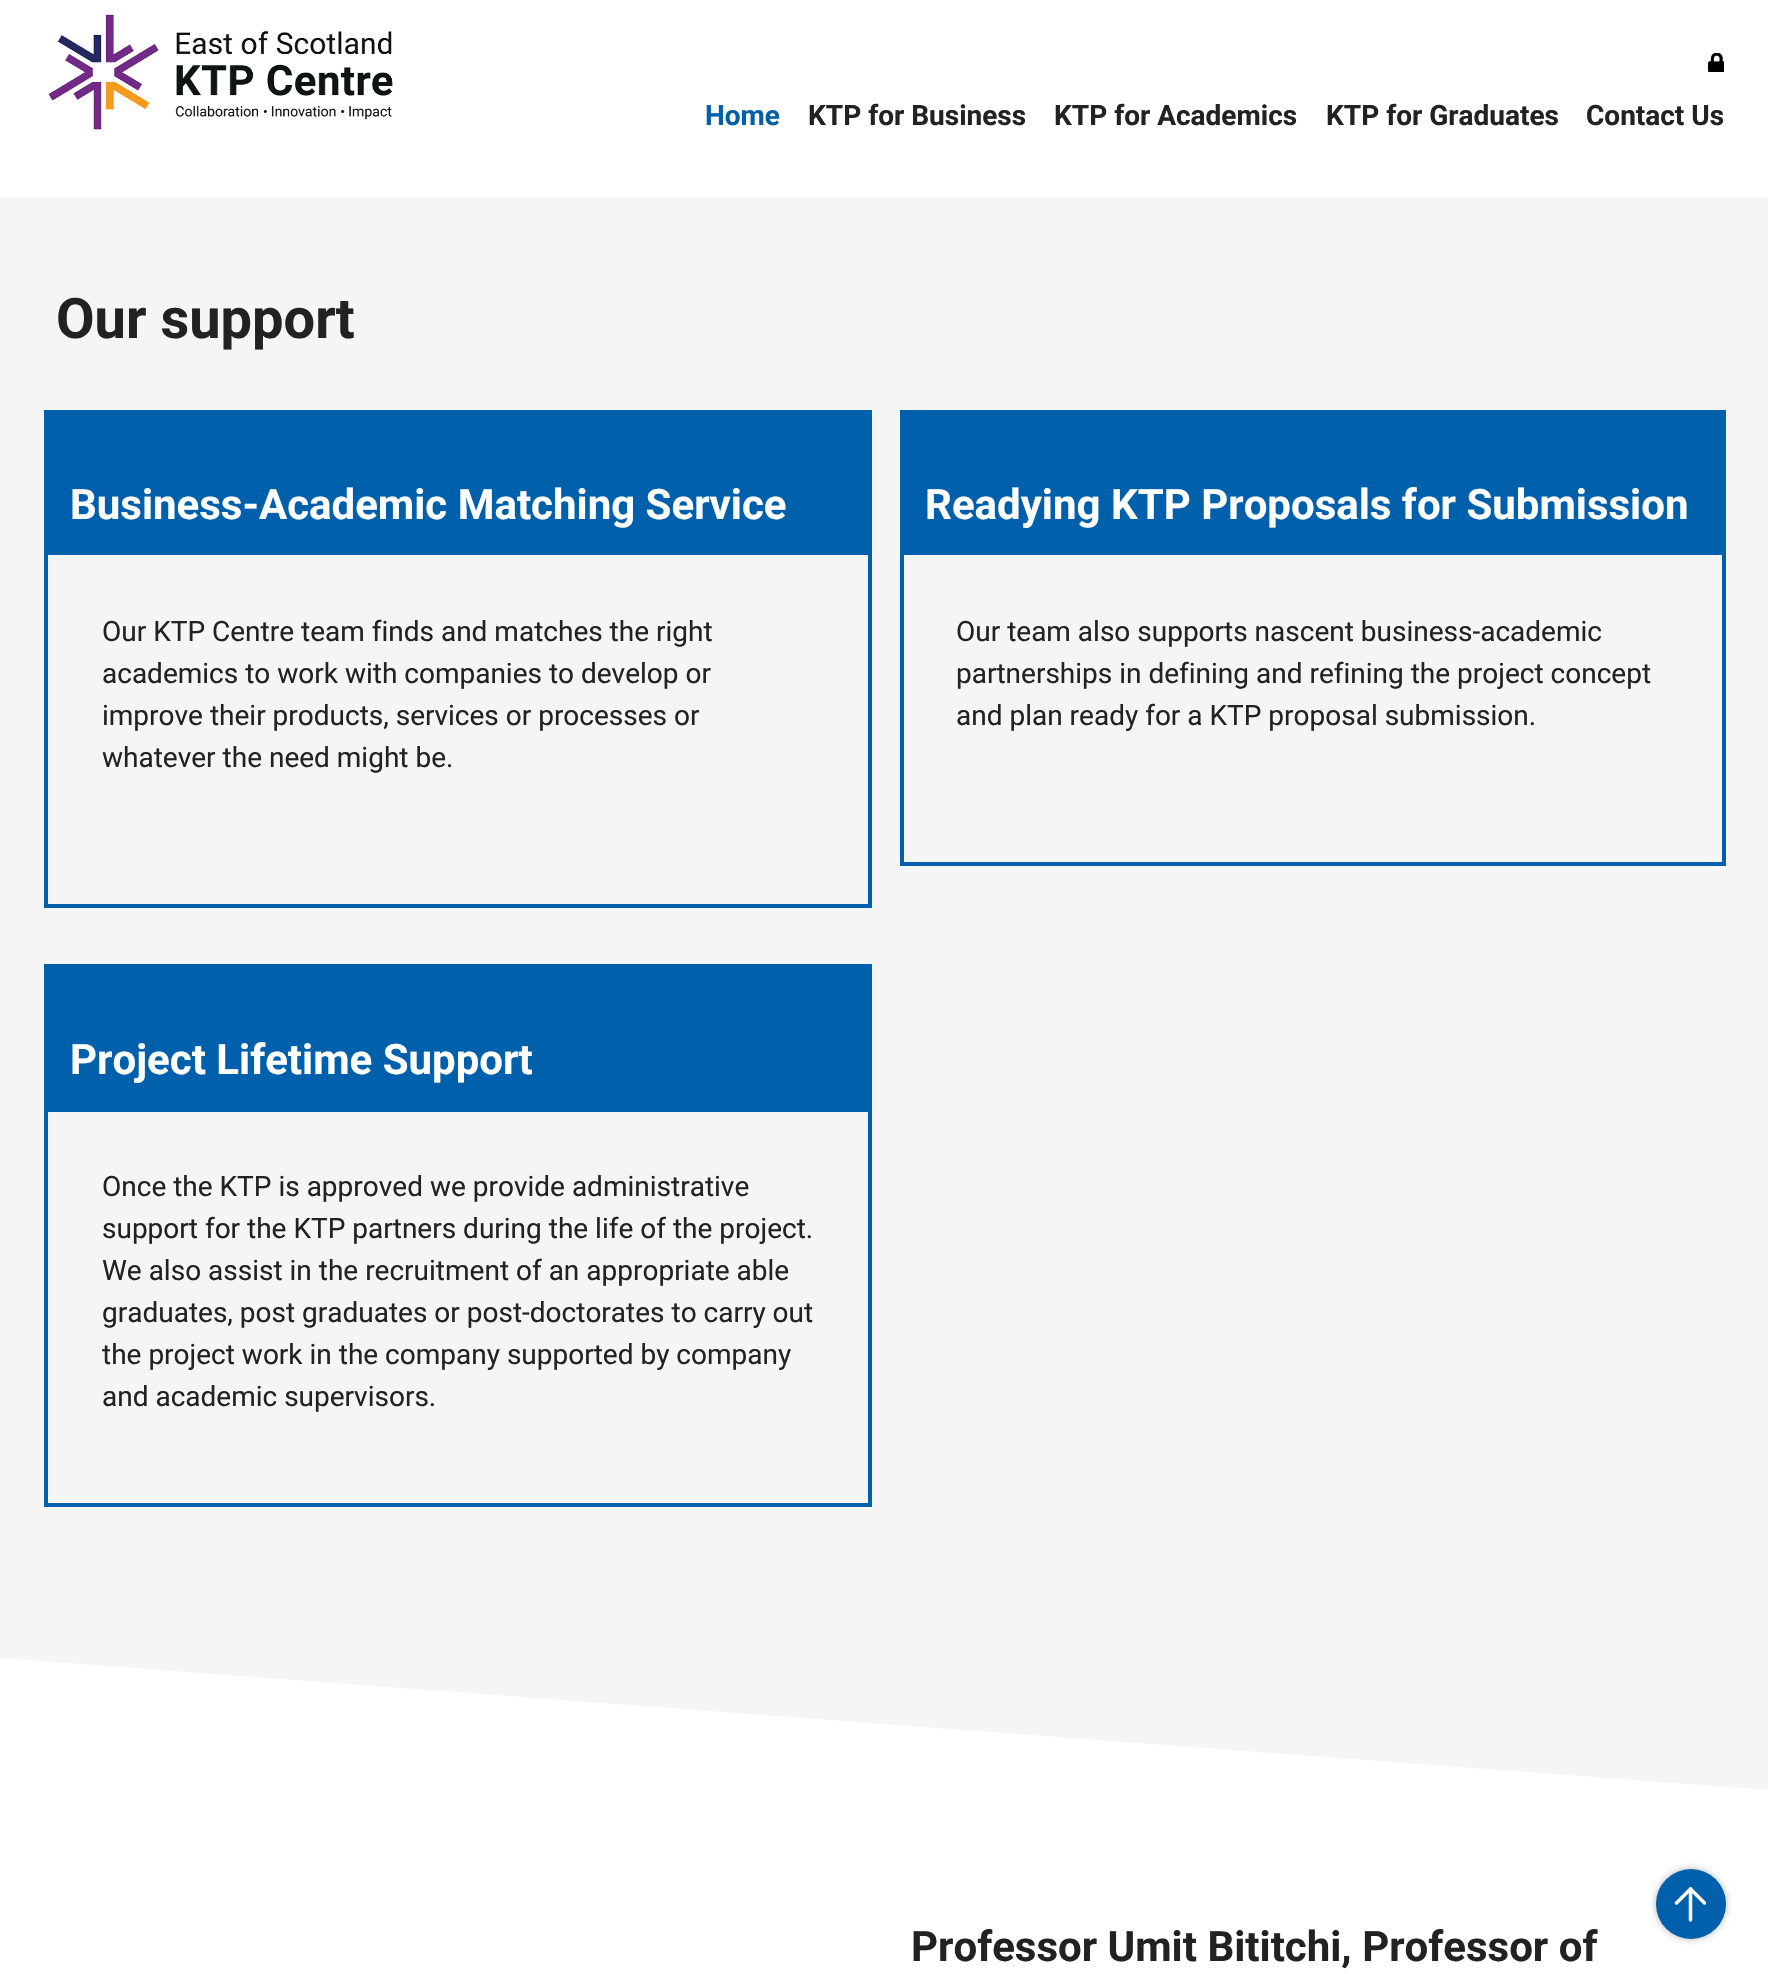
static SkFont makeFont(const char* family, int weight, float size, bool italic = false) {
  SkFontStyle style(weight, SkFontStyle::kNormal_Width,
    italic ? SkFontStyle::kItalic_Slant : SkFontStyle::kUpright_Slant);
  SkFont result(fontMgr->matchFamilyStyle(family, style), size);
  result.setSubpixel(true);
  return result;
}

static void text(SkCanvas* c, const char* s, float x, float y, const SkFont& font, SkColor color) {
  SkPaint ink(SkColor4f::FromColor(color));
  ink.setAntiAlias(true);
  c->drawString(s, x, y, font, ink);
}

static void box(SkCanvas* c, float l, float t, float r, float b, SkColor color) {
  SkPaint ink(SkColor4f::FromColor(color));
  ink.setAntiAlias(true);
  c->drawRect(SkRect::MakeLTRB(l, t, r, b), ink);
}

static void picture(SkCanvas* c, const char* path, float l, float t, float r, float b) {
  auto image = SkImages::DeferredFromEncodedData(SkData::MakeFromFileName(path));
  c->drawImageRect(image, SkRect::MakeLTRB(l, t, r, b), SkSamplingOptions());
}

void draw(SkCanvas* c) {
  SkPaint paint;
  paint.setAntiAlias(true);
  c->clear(0xffffffff);
  paint.setColor(0xfff5f5f5);
  c->drawPath(SkPathBuilder().moveTo(0, 58).lineTo(0, 1658).lineTo(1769, 1790).lineTo(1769, 189).close().detach(), paint);
  box(c, 0, 58, 1768, 198, 0xffffffff);
  picture(c, "img_01.png", 48, 14, 393, 130);
  picture(c, "img_02.png", 1708, 53, 1724, 72);
  SkFont face1 = makeFont("Roboto", 700, 28);
  text(c, "Home", 705, 125, face1, 0xff0060ac);
  text(c, "KTP for Business", 808, 125, face1, 0xff222222);
  text(c, "KTP for Academics", 1054, 125, face1, 0xff222222);
  text(c, "KTP for Graduates", 1326, 125, face1, 0xff222222);
  text(c, "Contact Us", 1586, 125, face1, 0xff222222);
  SkFont face2 = makeFont("Roboto", 700, 56);
  text(c, "Our support", 56, 338, face2, 0xff222222);
  box(c, 44, 410, 872, 551, 0xff0060ac);
  SkFont face3 = makeFont("Roboto", 700, 42);
  text(c, "Business-Academic Matching Service", 70, 519, face3, 0xffffffff);
  paint.setStyle(SkPaint::kStroke_Style);
  paint.setStrokeWidth(4);
  paint.setColor(0xff0060ac);
  c->drawRect(SkRect::MakeLTRB(46, 553, 870, 906), paint);
  SkFont face4 = makeFont("Roboto", 400, 28);
  text(c, "Our KTP Centre team finds and matches the right", 102, 641, face4, 0xff222222);
  text(c, "academics to work with companies to develop or", 102, 683, face4, 0xff222222);
  text(c, "improve their products, services or processes or", 102, 725, face4, 0xff222222);
  text(c, "whatever the need might be.", 102, 767, face4, 0xff222222);
  box(c, 900, 410, 1726, 551, 0xff0060ac);
  text(c, "Readying KTP Proposals for Submission", 925, 519, face3, 0xffffffff);
  c->drawRect(SkRect::MakeLTRB(902, 553, 1724, 864), paint);
  text(c, "Our team also supports nascent business-academic", 956, 641, face4, 0xff222222);
  text(c, "partnerships in defining and refining the project concept", 956, 683, face4, 0xff222222);
  text(c, "and plan ready for a KTP proposal submission.", 956, 725, face4, 0xff222222);
  box(c, 44, 964, 872, 1108, 0xff0060ac);
  text(c, "Project Lifetime Support", 70, 1074, face3, 0xffffffff);
  c->drawRect(SkRect::MakeLTRB(46, 1110, 870, 1505), paint);
  text(c, "Once the KTP is approved we provide administrative", 102, 1196, face4, 0xff222222);
  text(c, "support for the KTP partners during the life of the project.", 102, 1238, face4, 0xff222222);
  text(c, "We also assist in the recruitment of an appropriate able", 102, 1280, face4, 0xff222222);
  text(c, "graduates, post graduates or post-doctorates to carry out", 102, 1322, face4, 0xff222222);
  text(c, "the project work in the company supported by company", 102, 1364, face4, 0xff222222);
  text(c, "and academic supervisors.", 102, 1406, face4, 0xff222222);
  text(c, "Professor Umit Bititchi, Professor of", 911, 1961, face3, 0xff222222);
  paint.setStyle(SkPaint::kFill_Style);
  paint.setColor(0x4d000000);
  paint.setMaskFilter(SkMaskFilter::MakeBlur(kNormal_SkBlurStyle, 3.5f));
  c->drawRoundRect(SkRect::MakeLTRB(1656, 1869, 1726, 1939), 35, 35, paint);
  paint.setMaskFilter(nullptr);
  paint.setColor(0xff0060ac);
  c->drawCircle(1691, 1904, 35, paint);
  c->save();
  c->clipRect(SkRect::MakeLTRB(1673, 1887, 1706, 1922));
  paint.setStyle(SkPaint::kStroke_Style);
  paint.setStrokeWidth(3.5f);
  paint.setStrokeCap(SkPaint::kRound_Cap);
  paint.setColor(0xffffffff);
  c->drawPath(SkPathBuilder().moveTo(1676.5f, 1903).lineTo(1690.5f, 1889).lineTo(1704.5f, 1903).detach(), paint);
  c->restore();
  c->drawPath(SkPathBuilder().moveTo(1690.5f, 1889).lineTo(1690.5f, 1920).detach(), paint);
}
